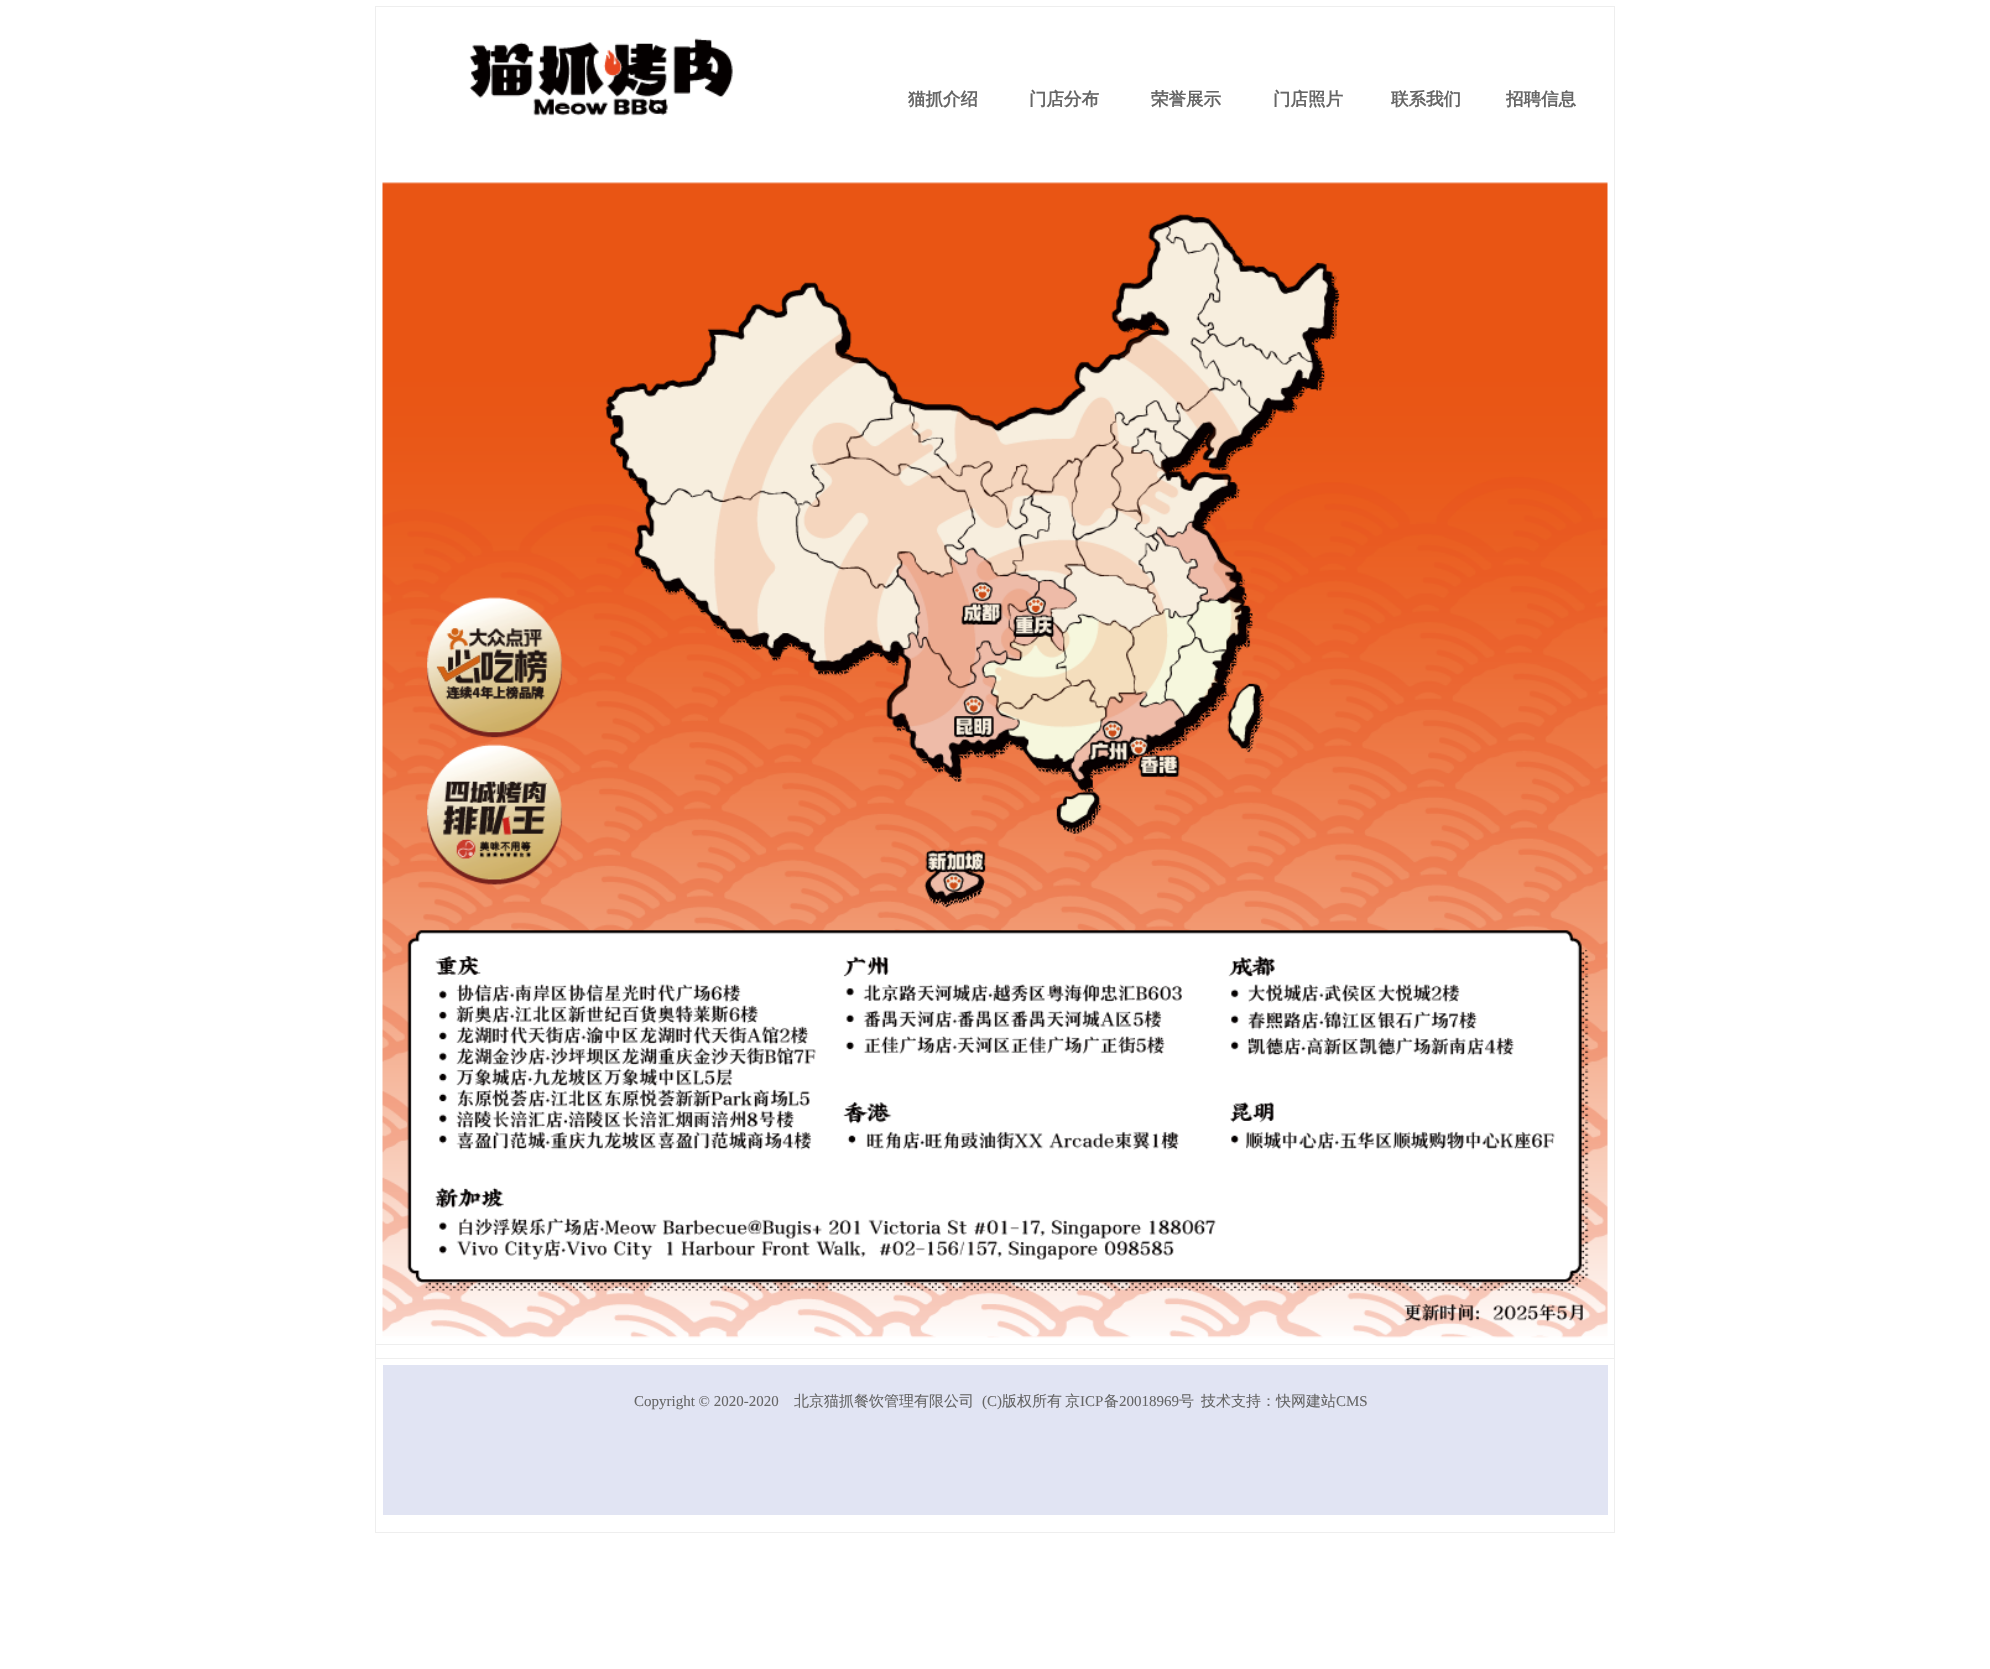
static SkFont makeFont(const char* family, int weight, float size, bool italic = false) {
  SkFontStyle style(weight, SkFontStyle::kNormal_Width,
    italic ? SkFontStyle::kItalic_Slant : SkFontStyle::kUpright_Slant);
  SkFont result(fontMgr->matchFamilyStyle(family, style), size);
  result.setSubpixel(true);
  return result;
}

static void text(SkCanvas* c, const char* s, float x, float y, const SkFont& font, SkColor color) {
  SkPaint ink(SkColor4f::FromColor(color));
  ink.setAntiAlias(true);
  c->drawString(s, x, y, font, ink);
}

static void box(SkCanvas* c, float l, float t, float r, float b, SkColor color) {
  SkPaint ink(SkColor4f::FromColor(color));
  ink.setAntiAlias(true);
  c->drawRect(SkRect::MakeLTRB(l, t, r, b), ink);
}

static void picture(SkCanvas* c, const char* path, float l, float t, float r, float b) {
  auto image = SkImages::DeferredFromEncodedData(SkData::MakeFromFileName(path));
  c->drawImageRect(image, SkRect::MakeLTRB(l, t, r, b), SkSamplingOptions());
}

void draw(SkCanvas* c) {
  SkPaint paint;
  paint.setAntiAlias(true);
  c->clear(0xffffffff);
  paint.setStyle(SkPaint::kStroke_Style);
  paint.setStrokeWidth(1);
  paint.setColor(0xffeeeeee);
  c->drawRect(SkRect::MakeLTRB(375.5f, 6.5f, 1614.5f, 1532.5f), paint);
  picture(c, "img_01.png", 469, 38, 733, 116);
  SkFont face1 = makeFont("WenQuanYi Zen Hei", 700, 17.5f);
  text(c, "猫抓介绍", 908, 105, face1, 0xff666666);
  text(c, "门店分布", 1029, 105, face1, 0xff666666);
  text(c, "荣誉展示", 1151, 105, face1, 0xff666666);
  text(c, "门店照片", 1273, 105, face1, 0xff666666);
  text(c, "联系我们", 1391, 105, face1, 0xff666666);
  text(c, "招聘信息", 1506, 105, face1, 0xff666666);
  picture(c, "img_02.png", 382, 182, 1608, 1338);
  box(c, 376, 1344, 1614, 1345, 0xffeeeeee);
  box(c, 376, 1358, 1614, 1359, 0xffeeeeee);
  box(c, 383, 1365, 1608, 1515, 0xffe1e4f3);
  SkFont face2 = makeFont("Liberation Serif", 400, 15);
  text(c, "Copyright © 2020-2020", 634, 1406, face2, 0xff666666);
  SkFont face3 = makeFont("WenQuanYi Zen Hei", 500, 15);
  text(c, "北京猫抓餐饮管理有限公司", 794, 1406, face3, 0xff666666);
  text(c, "(C)", 982, 1406, face2, 0xff666666);
  text(c, "版权所有", 1002, 1406, face3, 0xff666666);
  text(c, "京", 1065, 1406, face3, 0xff666666);
  text(c, "ICP", 1080, 1406, face2, 0xff666666);
  text(c, "备", 1104, 1406, face3, 0xff666666);
  text(c, "20018969", 1119, 1406, face2, 0xff666666);
  text(c, "号", 1179, 1406, face3, 0xff666666);
  text(c, "技术支持：快网建站", 1201, 1406, face3, 0xff666666);
  text(c, "CMS", 1336, 1406, face2, 0xff666666);
}
